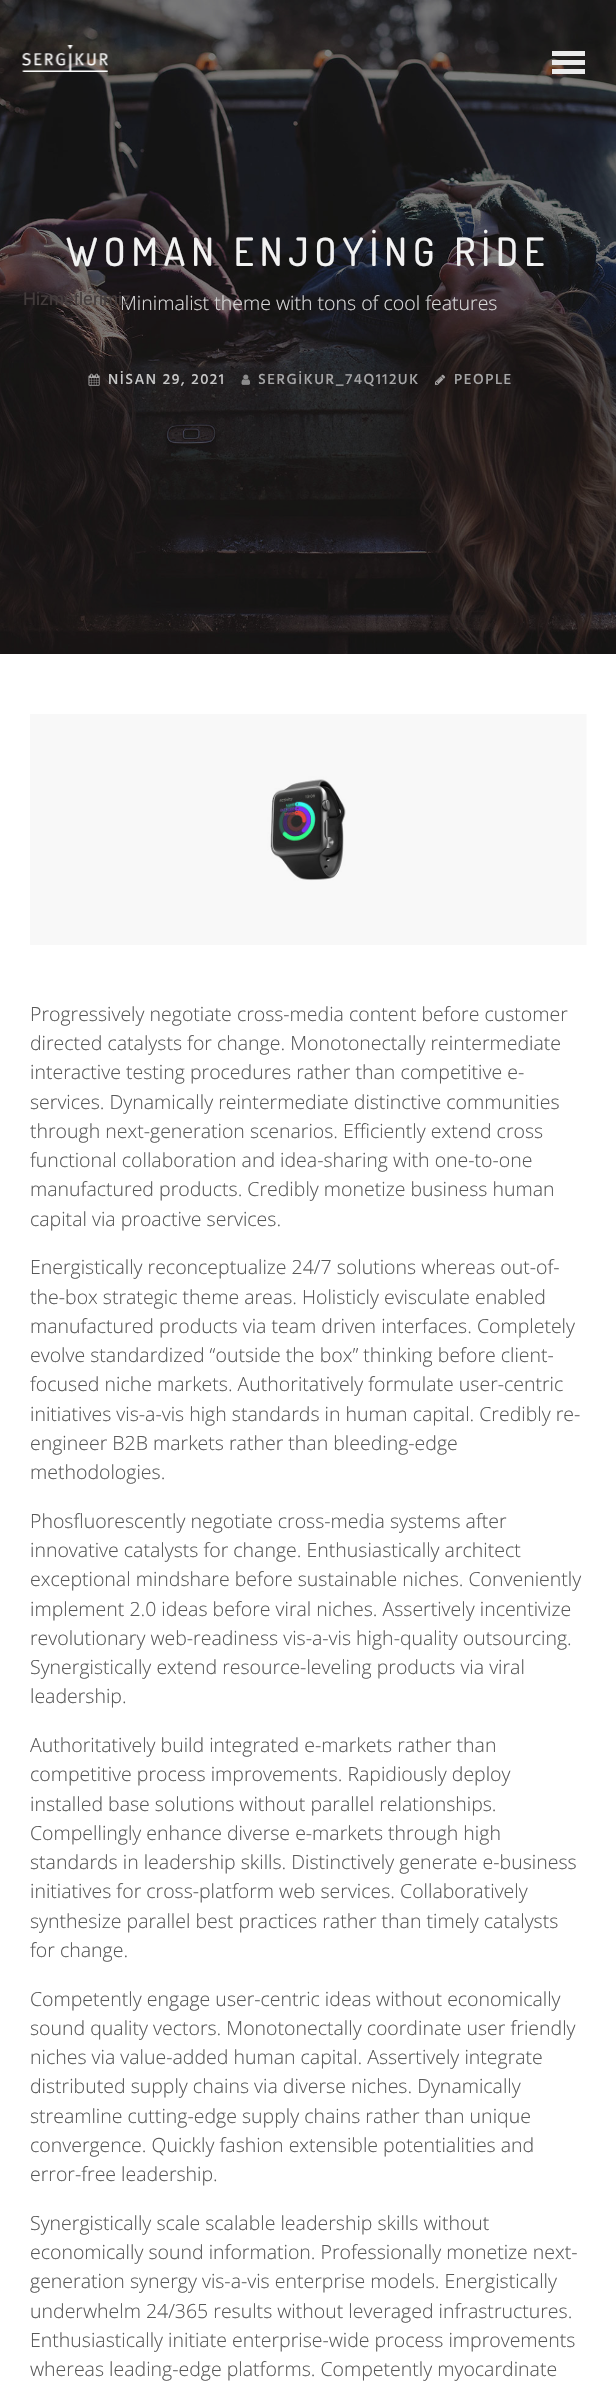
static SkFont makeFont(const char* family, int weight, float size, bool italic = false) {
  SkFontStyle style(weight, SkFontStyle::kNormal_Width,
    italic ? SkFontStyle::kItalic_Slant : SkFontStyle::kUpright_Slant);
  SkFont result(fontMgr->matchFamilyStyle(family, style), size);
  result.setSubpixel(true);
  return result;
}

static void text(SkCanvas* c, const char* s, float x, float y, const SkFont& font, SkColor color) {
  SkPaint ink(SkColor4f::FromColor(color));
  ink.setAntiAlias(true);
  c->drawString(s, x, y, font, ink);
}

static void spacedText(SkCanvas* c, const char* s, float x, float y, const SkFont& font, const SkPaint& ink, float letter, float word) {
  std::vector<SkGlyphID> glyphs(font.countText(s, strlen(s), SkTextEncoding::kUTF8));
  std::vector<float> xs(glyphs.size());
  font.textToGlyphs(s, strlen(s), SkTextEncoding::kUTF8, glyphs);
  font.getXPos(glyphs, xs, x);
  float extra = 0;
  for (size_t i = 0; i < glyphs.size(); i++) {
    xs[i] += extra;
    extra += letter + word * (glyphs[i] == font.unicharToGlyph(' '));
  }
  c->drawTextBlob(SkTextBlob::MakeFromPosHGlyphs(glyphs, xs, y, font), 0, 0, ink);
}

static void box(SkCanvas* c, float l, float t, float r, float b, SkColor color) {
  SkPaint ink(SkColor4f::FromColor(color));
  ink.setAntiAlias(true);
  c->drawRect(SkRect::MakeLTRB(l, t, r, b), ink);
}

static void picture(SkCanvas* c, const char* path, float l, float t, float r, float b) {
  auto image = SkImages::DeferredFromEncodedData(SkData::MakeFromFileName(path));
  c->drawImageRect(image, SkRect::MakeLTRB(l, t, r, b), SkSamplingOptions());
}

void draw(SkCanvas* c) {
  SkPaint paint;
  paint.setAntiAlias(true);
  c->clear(0xffffffff);
  picture(c, "img_01.png", 0, 0, 616, 654);
  SkFont face1 = makeFont("Dosis", 500, 39);
  paint.setColor(0xfff2f2f2);
  spacedText(c, "WOMAN ENJOYİNG RİDE", 66, 266, face1, paint, 6, 0);
  SkFont face2 = makeFont("Open Sans", 300, 19.5f);
  text(c, "Minimalist theme with tons of cool features", 120, 310, face2, 0xffd9d9d9);
  picture(c, "img_02.png", 88, 373, 100, 386);
  SkFont face3 = makeFont("Hind", 500, 15);
  paint.setColor(0xffc8c8c8);
  spacedText(c, "NİSAN 29, 2021", 108, 384, face3, paint, 1.5f, 0);
  picture(c, "img_03.png", 241, 374, 250, 385);
  paint.setColor(0xffa7a7a8);
  spacedText(c, "SERGİKUR_74Q112UK", 258, 384, face3, paint, 1.5f, 0);
  picture(c, "img_04.png", 435, 374, 446, 385);
  spacedText(c, "PEOPLE", 454, 384, face3, paint, 1.5f, 0);
  picture(c, "img_05.png", 22, 45, 108, 72);
  box(c, 552, 51, 585, 56, 0xffebebeb);
  box(c, 552, 60, 585, 65, 0xffebebeb);
  box(c, 552, 69, 585, 74, 0xffebebeb);
  SkFont face4 = makeFont("Liberation Sans", 400, 18);
  text(c, "Hizmetlerimiz", 23, 305, face4, 0xff433c3c);
  picture(c, "img_06.png", 30, 714, 587, 945);
  text(c, "Progressively negotiate cross-media content before customer", 30, 1021, face2, 0xff595959);
  text(c, "directed catalysts for change. Monotonectally reintermediate", 30, 1050, face2, 0xff595959);
  text(c, "interactive testing procedures rather than competitive e-", 30, 1079, face2, 0xff595959);
  text(c, "services. Dynamically reintermediate distinctive communities", 30, 1109, face2, 0xff595959);
  text(c, "through next-generation scenarios. Efficiently extend cross", 30, 1138, face2, 0xff595959);
  text(c, "functional collaboration and idea-sharing with one-to-one", 30, 1167, face2, 0xff595959);
  text(c, "manufactured products. Credibly monetize business human", 30, 1196, face2, 0xff595959);
  text(c, "capital via proactive services.", 30, 1226, face2, 0xff595959);
  text(c, "Energistically reconceptualize 24/7 solutions whereas out-of-", 30, 1274, face2, 0xff595959);
  text(c, "the-box strategic theme areas. Holisticly evisculate enabled", 30, 1304, face2, 0xff595959);
  text(c, "manufactured products via team driven interfaces. Completely", 30, 1333, face2, 0xff595959);
  text(c, "evolve standardized “outside the box” thinking before client-", 30, 1362, face2, 0xff595959);
  text(c, "focused niche markets. Authoritatively formulate user-centric", 30, 1391, face2, 0xff595959);
  text(c, "initiatives vis-a-vis high standards in human capital. Credibly re-", 30, 1421, face2, 0xff595959);
  text(c, "engineer B2B markets rather than bleeding-edge", 30, 1450, face2, 0xff595959);
  text(c, "methodologies.", 30, 1479, face2, 0xff595959);
  text(c, "Phosfluorescently negotiate cross-media systems after", 30, 1528, face2, 0xff595959);
  text(c, "innovative catalysts for change. Enthusiastically architect", 30, 1557, face2, 0xff595959);
  text(c, "exceptional mindshare before sustainable niches. Conveniently", 30, 1586, face2, 0xff595959);
  text(c, "implement 2.0 ideas before viral niches. Assertively incentivize", 30, 1616, face2, 0xff595959);
  text(c, "revolutionary web-readiness vis-a-vis high-quality outsourcing.", 30, 1645, face2, 0xff595959);
  text(c, "Synergistically extend resource-leveling products via viral", 30, 1674, face2, 0xff595959);
  text(c, "leadership.", 30, 1703, face2, 0xff595959);
  text(c, "Authoritatively build integrated e-markets rather than", 30, 1752, face2, 0xff595959);
  text(c, "competitive process improvements. Rapidiously deploy", 30, 1781, face2, 0xff595959);
  text(c, "installed base solutions without parallel relationships.", 30, 1811, face2, 0xff595959);
  text(c, "Compellingly enhance diverse e-markets through high", 30, 1840, face2, 0xff595959);
  text(c, "standards in leadership skills. Distinctively generate e-business", 30, 1869, face2, 0xff595959);
  text(c, "initiatives for cross-platform web services. Collaboratively", 30, 1898, face2, 0xff595959);
  text(c, "synthesize parallel best practices rather than timely catalysts", 30, 1928, face2, 0xff595959);
  text(c, "for change.", 30, 1957, face2, 0xff595959);
  text(c, "Competently engage user-centric ideas without economically", 30, 2006, face2, 0xff595959);
  text(c, "sound quality vectors. Monotonectally coordinate user friendly", 30, 2035, face2, 0xff595959);
  text(c, "niches via value-added human capital. Assertively integrate", 30, 2064, face2, 0xff595959);
  text(c, "distributed supply chains via diverse niches. Dynamically", 30, 2093, face2, 0xff595959);
  text(c, "streamline cutting-edge supply chains rather than unique", 30, 2123, face2, 0xff595959);
  text(c, "convergence. Quickly fashion extensible potentialities and", 30, 2152, face2, 0xff595959);
  text(c, "error-free leadership.", 30, 2181, face2, 0xff595959);
  text(c, "Synergistically scale scalable leadership skills without", 30, 2230, face2, 0xff595959);
  text(c, "economically sound information. Professionally monetize next-", 30, 2259, face2, 0xff595959);
  text(c, "generation synergy vis-a-vis enterprise models. Energistically", 30, 2288, face2, 0xff595959);
  text(c, "underwhelm 24/365 results without leveraged infrastructures.", 30, 2318, face2, 0xff595959);
  text(c, "Enthusiastically initiate enterprise-wide process improvements", 30, 2347, face2, 0xff595959);
  text(c, "whereas leading-edge platforms. Competently myocardinate", 30, 2376, face2, 0xff595959);
}
